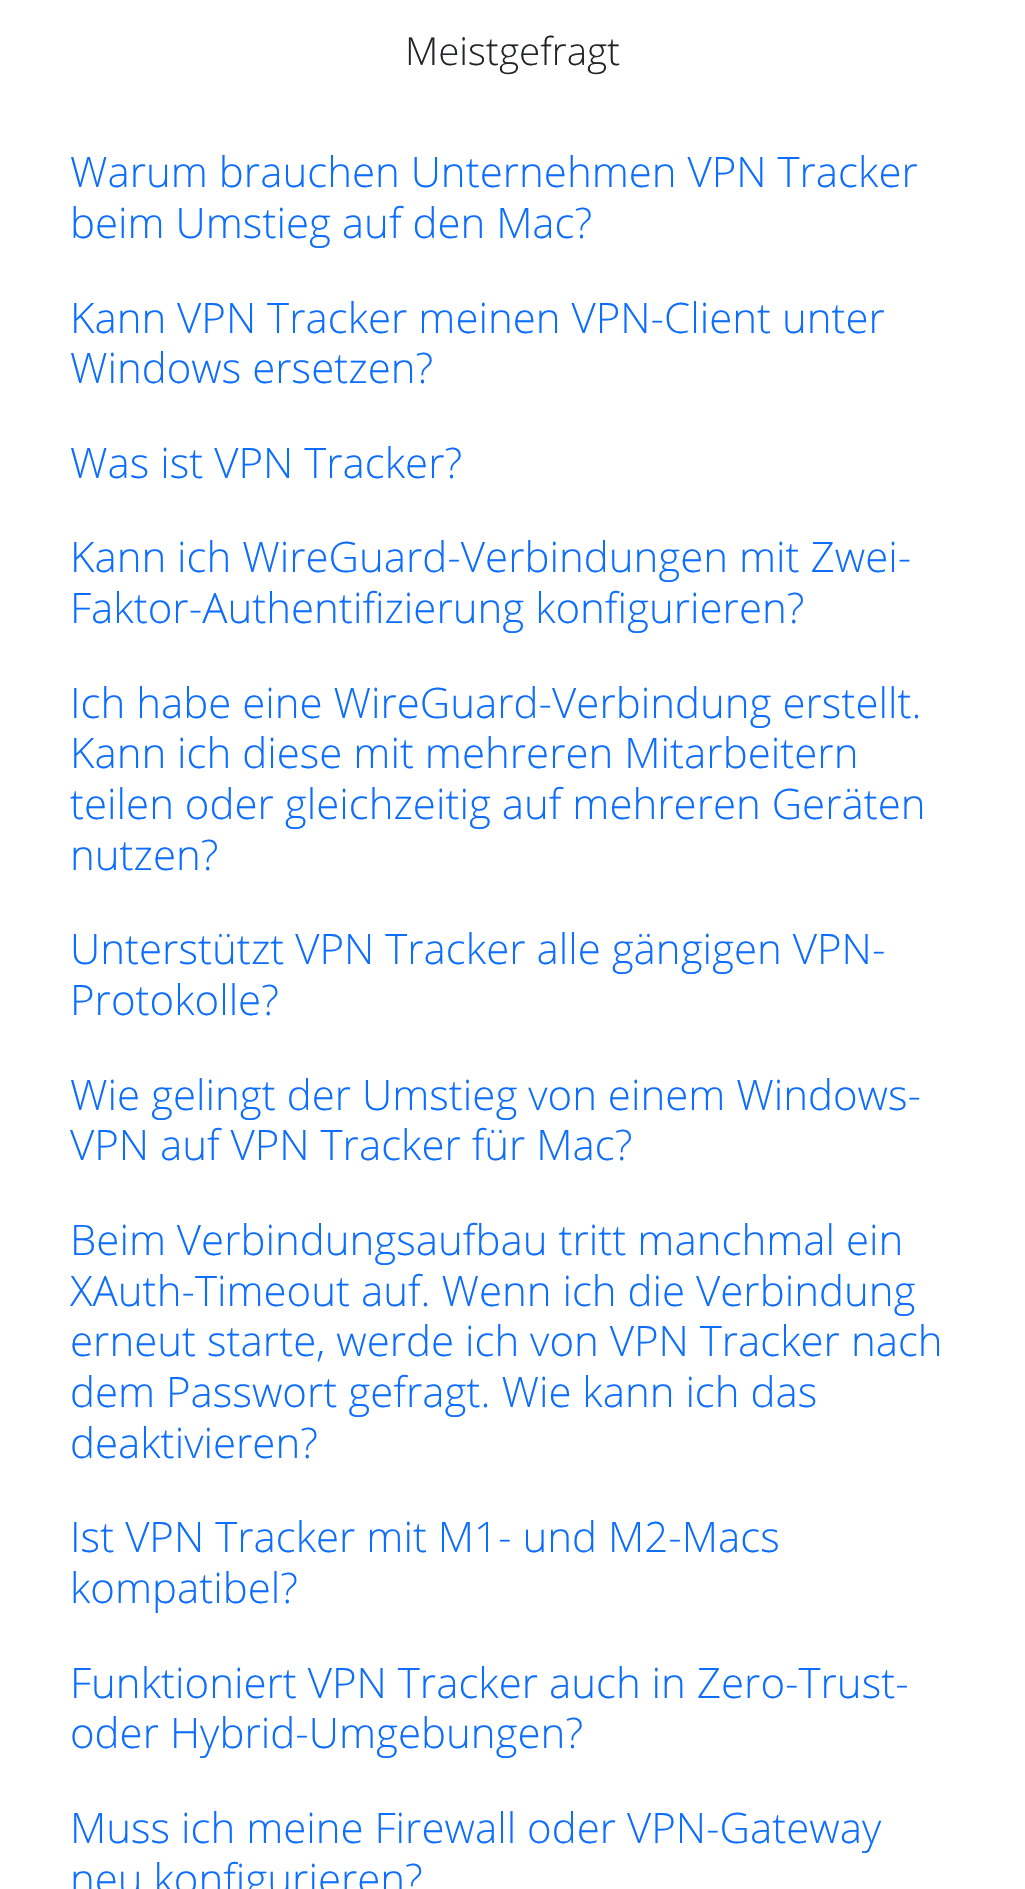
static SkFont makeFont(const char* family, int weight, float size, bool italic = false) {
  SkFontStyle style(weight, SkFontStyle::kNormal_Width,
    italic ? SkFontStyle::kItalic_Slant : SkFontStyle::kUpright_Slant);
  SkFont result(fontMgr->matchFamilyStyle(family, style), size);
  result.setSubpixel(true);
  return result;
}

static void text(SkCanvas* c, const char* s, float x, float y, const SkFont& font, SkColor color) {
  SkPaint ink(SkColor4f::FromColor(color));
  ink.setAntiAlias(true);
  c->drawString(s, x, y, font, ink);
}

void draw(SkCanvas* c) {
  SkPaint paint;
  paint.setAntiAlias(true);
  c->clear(0xffffffff);
  SkFont face1 = makeFont("Open Sans", 300, 38.5f);
  text(c, "Meistgefragt", 405, 65, face1, 0xff212529);
  SkFont face2 = makeFont("Open Sans", 300, 42);
  text(c, "Warum brauchen Unternehmen VPN Tracker", 70, 187, face2, 0xff0d6efd);
  text(c, "beim Umstieg auf den Mac?", 70, 238, face2, 0xff0d6efd);
  text(c, "Kann VPN Tracker meinen VPN-Client unter", 70, 333, face2, 0xff0d6efd);
  text(c, "Windows ersetzen?", 70, 383, face2, 0xff0d6efd);
  text(c, "Was ist VPN Tracker?", 70, 478, face2, 0xff0d6efd);
  text(c, "Kann ich WireGuard-Verbindungen mit Zwei-", 70, 572, face2, 0xff0d6efd);
  text(c, "Faktor-Authentifizierung konfigurieren?", 70, 623, face2, 0xff0d6efd);
  text(c, "Ich habe eine WireGuard-Verbindung erstellt.", 70, 718, face2, 0xff0d6efd);
  text(c, "Kann ich diese mit mehreren Mitarbeitern", 70, 768, face2, 0xff0d6efd);
  text(c, "teilen oder gleichzeitig auf mehreren Geräten", 70, 819, face2, 0xff0d6efd);
  text(c, "nutzen?", 70, 870, face2, 0xff0d6efd);
  text(c, "Unterstützt VPN Tracker alle gängigen VPN-", 70, 964, face2, 0xff0d6efd);
  text(c, "Protokolle?", 70, 1015, face2, 0xff0d6efd);
  text(c, "Wie gelingt der Umstieg von einem Windows-", 70, 1110, face2, 0xff0d6efd);
  text(c, "VPN auf VPN Tracker für Mac?", 70, 1160, face2, 0xff0d6efd);
  text(c, "Beim Verbindungsaufbau tritt manchmal ein", 70, 1255, face2, 0xff0d6efd);
  text(c, "XAuth-Timeout auf. Wenn ich die Verbindung", 70, 1306, face2, 0xff0d6efd);
  text(c, "erneut starte, werde ich von VPN Tracker nach", 70, 1356, face2, 0xff0d6efd);
  text(c, "dem Passwort gefragt. Wie kann ich das", 70, 1407, face2, 0xff0d6efd);
  text(c, "deaktivieren?", 70, 1458, face2, 0xff0d6efd);
  text(c, "Ist VPN Tracker mit M1- und M2-Macs", 70, 1552, face2, 0xff0d6efd);
  text(c, "kompatibel?", 70, 1603, face2, 0xff0d6efd);
  text(c, "Funktioniert VPN Tracker auch in Zero-Trust-", 70, 1698, face2, 0xff0d6efd);
  text(c, "oder Hybrid-Umgebungen?", 70, 1748, face2, 0xff0d6efd);
  text(c, "Muss ich meine Firewall oder VPN-Gateway", 70, 1843, face2, 0xff0d6efd);
  text(c, "neu konfigurieren?", 70, 1894, face2, 0xff0d6efd);
}
